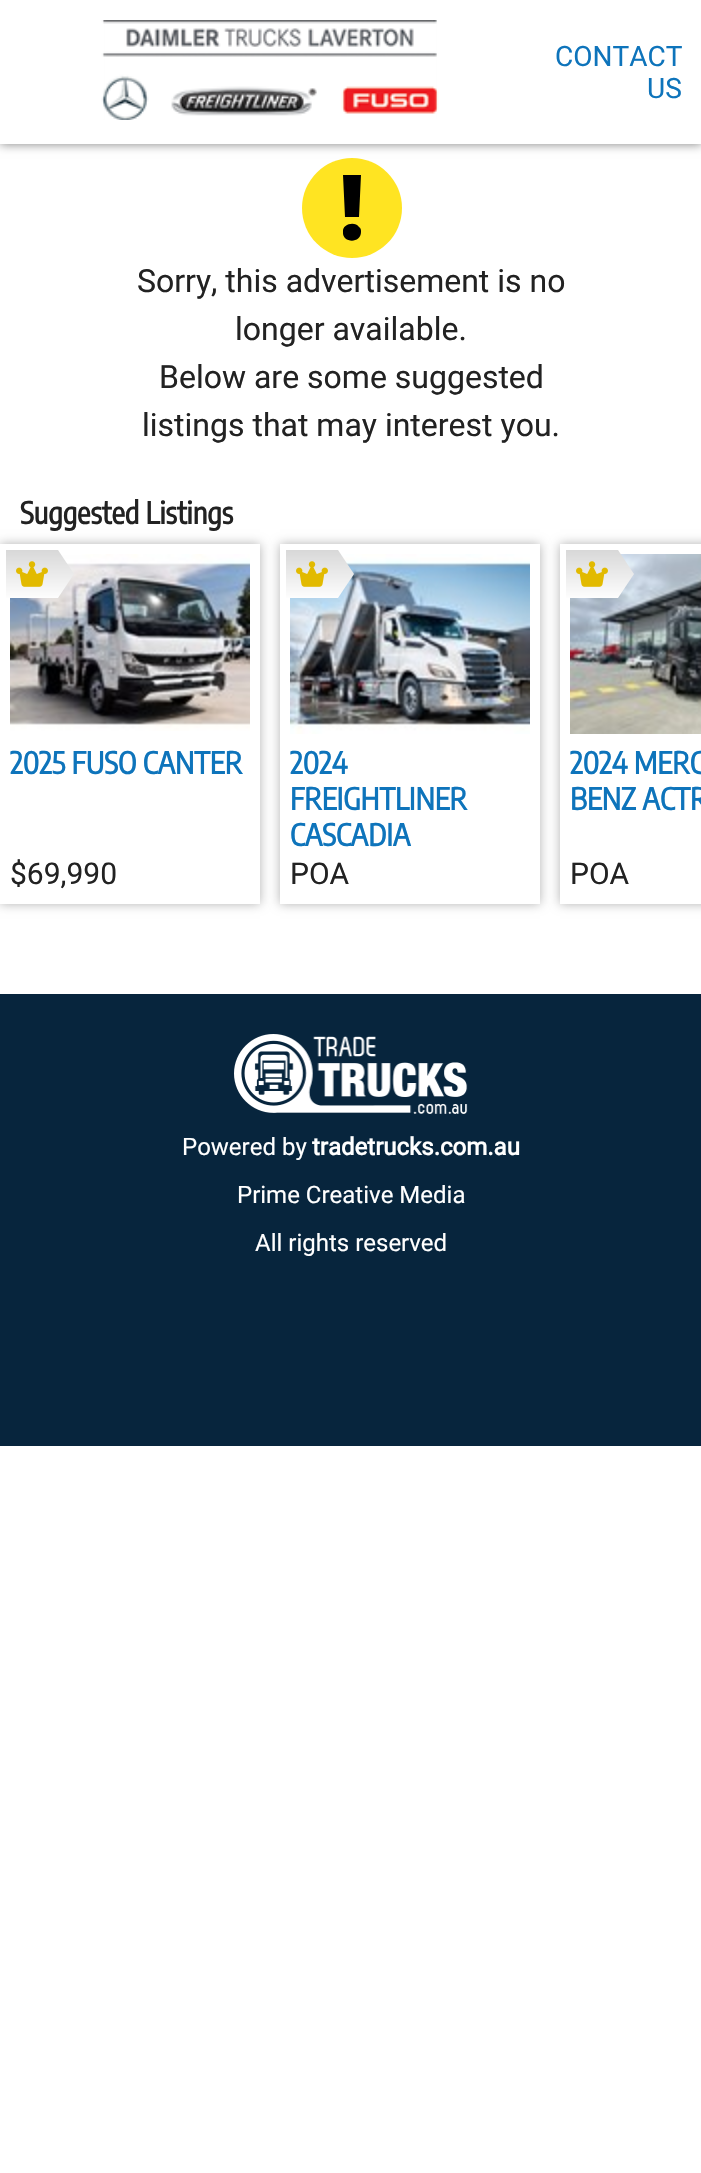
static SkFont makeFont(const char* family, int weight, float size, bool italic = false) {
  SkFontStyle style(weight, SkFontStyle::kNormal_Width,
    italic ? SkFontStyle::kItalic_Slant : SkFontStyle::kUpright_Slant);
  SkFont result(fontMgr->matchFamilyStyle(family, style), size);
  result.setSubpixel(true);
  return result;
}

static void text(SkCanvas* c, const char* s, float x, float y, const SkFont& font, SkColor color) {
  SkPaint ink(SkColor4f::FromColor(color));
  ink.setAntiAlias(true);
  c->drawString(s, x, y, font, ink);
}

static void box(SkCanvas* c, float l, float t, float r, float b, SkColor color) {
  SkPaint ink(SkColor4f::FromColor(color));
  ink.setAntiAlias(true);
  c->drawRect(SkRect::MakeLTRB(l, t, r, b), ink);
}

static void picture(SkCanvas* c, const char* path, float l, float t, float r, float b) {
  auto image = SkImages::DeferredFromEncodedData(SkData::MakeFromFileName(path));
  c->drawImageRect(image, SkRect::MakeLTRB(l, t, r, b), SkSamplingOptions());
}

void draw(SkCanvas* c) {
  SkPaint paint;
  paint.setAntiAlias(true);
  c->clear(0xffffffff);
  paint.setColor(0xffffe422);
  c->drawCircle(352, 208, 50, paint);
  paint.setColor(0x80000000);
  paint.setMaskFilter(SkMaskFilter::MakeBlur(kNormal_SkBlurStyle, 5));
  c->drawRect(SkRect::MakeLTRB(0, 0, 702, 144), paint);
  paint.setMaskFilter(nullptr);
  box(c, 0, 0, 701, 144, 0xffffffff);
  picture(c, "img_01.png", 101, 20, 439, 120);
  SkFont face1 = makeFont("Roboto", 400, 28);
  text(c, "CONTACT", 555, 66, face1, 0xff0e74bb);
  text(c, "US", 647, 98, face1, 0xff0e74bb);
  paint.setColor(0xff000000);
  c->drawPath(SkPathBuilder().moveTo(359, 217).lineTo(345, 217).lineTo(343, 175).lineTo(361, 175).close().moveTo(343, 232).cubicTo(342, 224, 355, 221, 359, 227).cubicTo(361, 228, 361, 230, 361, 232).cubicTo(361, 244, 342, 243, 343, 232).close().detach(), paint);
  SkFont face2 = makeFont("Roboto", 400, 32);
  text(c, "Sorry, this advertisement is no", 137, 292, face2, 0xff222222);
  text(c, "longer available.", 235, 340, face2, 0xff222222);
  text(c, "Below are some suggested", 159, 388, face2, 0xff222222);
  text(c, "listings that may interest you.", 142, 436, face2, 0xff222222);
  SkFont face3 = makeFont("Encode Sans Condensed", 700, 30);
  text(c, "Suggested Listings", 20, 524, face3, 0xff222222);
  c->save();
  c->clipPath(SkPathBuilder(SkPathFillType::kEvenOdd).moveTo(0, 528).lineTo(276, 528).lineTo(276, 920).lineTo(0, 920).close().moveTo(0, 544).lineTo(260, 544).lineTo(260, 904).lineTo(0, 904).close().detach(), true);
  paint.setColor(0x4d000000);
  paint.setMaskFilter(SkMaskFilter::MakeBlur(kNormal_SkBlurStyle, 5));
  c->drawRect(SkRect::MakeLTRB(0, 544, 260, 904), paint);
  paint.setMaskFilter(nullptr);
  c->restore();
  picture(c, "img_03.png", 10, 554, 250, 731);
  {
    const SkColor colors[] = {0xffd8d8d8, 0xfffdfdfd};
    const float stops[] = {0, 1};
    const SkPoint ends[] = {{6, 550}, {6, 598}};
    paint.setShader(SkGradientShader::MakeLinear(ends, colors, stops, 2, SkTileMode::kClamp));
    paint.setAlpha(255);
  }
  c->drawPath(SkPathBuilder().moveTo(6, 550).lineTo(6, 598).lineTo(58, 598).lineTo(74, 574).lineTo(58, 550).close().detach(), paint);
  picture(c, "img_02.png", 16, 561, 48, 587);
  text(c, "2025 FUSO CANTER", 10, 774, face3, 0xff0e74bb);
  SkFont face4 = makeFont("Roboto", 400, 30);
  text(c, "$69,990", 10, 884, face4, 0xff222222);
  c->save();
  c->clipPath(SkPathBuilder(SkPathFillType::kEvenOdd).moveTo(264, 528).lineTo(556, 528).lineTo(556, 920).lineTo(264, 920).close().moveTo(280, 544).lineTo(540, 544).lineTo(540, 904).lineTo(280, 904).close().detach(), true);
  paint.setShader(nullptr);
  paint.setColor(0x4d000000);
  paint.setMaskFilter(SkMaskFilter::MakeBlur(kNormal_SkBlurStyle, 5));
  c->drawRect(SkRect::MakeLTRB(280, 544, 540, 904), paint);
  paint.setMaskFilter(nullptr);
  c->restore();
  picture(c, "img_04.png", 290, 554, 530, 734);
  {
    const SkColor colors[] = {0xffd8d8d8, 0xfffdfdfd};
    const float stops[] = {0, 1};
    const SkPoint ends[] = {{286, 550}, {286, 598}};
    paint.setShader(SkGradientShader::MakeLinear(ends, colors, stops, 2, SkTileMode::kClamp));
    paint.setAlpha(255);
  }
  c->drawPath(SkPathBuilder().moveTo(286, 550).lineTo(286, 598).lineTo(338, 598).lineTo(354, 574).lineTo(338, 550).close().detach(), paint);
  picture(c, "img_02.png", 296, 561, 328, 587);
  text(c, "2024", 290, 774, face3, 0xff0e74bb);
  text(c, "FREIGHTLINER", 290, 810, face3, 0xff0e74bb);
  text(c, "CASCADIA", 290, 846, face3, 0xff0e74bb);
  text(c, "POA", 290, 884, face4, 0xff222222);
  c->save();
  c->clipPath(SkPathBuilder(SkPathFillType::kEvenOdd).moveTo(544, 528).lineTo(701, 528).lineTo(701, 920).lineTo(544, 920).close().moveTo(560, 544).lineTo(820, 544).lineTo(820, 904).lineTo(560, 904).close().detach(), true);
  paint.setShader(nullptr);
  paint.setColor(0x4d000000);
  paint.setMaskFilter(SkMaskFilter::MakeBlur(kNormal_SkBlurStyle, 5));
  c->drawRect(SkRect::MakeLTRB(560, 544, 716, 904), paint);
  paint.setMaskFilter(nullptr);
  c->restore();
  picture(c, "img_05.png", 570, 554, 701, 734);
  {
    const SkColor colors[] = {0xffd8d8d8, 0xfffdfdfd};
    const float stops[] = {0, 1};
    const SkPoint ends[] = {{566, 550}, {566, 598}};
    paint.setShader(SkGradientShader::MakeLinear(ends, colors, stops, 2, SkTileMode::kClamp));
    paint.setAlpha(255);
  }
  c->drawPath(SkPathBuilder().moveTo(566, 550).lineTo(566, 598).lineTo(618, 598).lineTo(634, 574).lineTo(618, 550).close().detach(), paint);
  picture(c, "img_02.png", 576, 561, 608, 587);
  text(c, "2024 MERC", 570, 774, face3, 0xff0e74bb);
  text(c, "BENZ ACTR", 570, 810, face3, 0xff0e74bb);
  text(c, "POA", 570, 884, face4, 0xff222222);
  box(c, 0, 994, 701, 1446, 0xff07253d);
  picture(c, "img_06.png", 234, 1034, 468, 1114);
  SkFont face5 = makeFont("Roboto", 400, 24);
  text(c, "Powered by", 182, 1155, face5, 0xffffffff);
  SkFont face6 = makeFont("Roboto", 700, 24);
  text(c, "tradetrucks.com.au", 312, 1155, face6, 0xffffffff);
  text(c, "Prime Creative Media", 237, 1203, face5, 0xffffffff);
  text(c, "All rights reserved", 255, 1251, face5, 0xffffffff);
}
